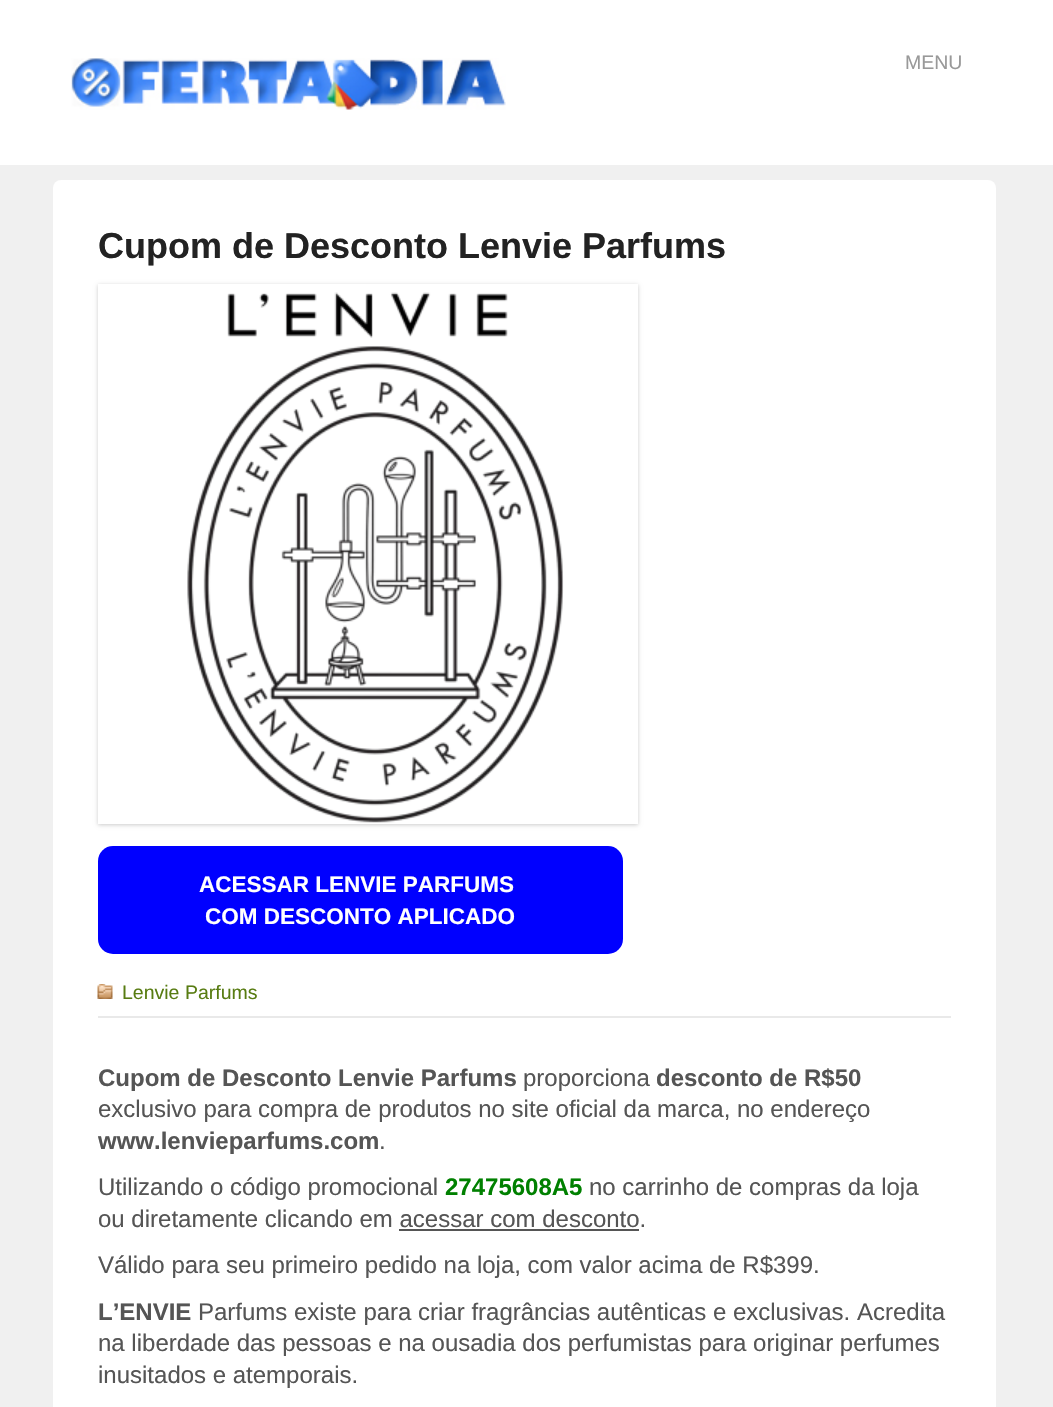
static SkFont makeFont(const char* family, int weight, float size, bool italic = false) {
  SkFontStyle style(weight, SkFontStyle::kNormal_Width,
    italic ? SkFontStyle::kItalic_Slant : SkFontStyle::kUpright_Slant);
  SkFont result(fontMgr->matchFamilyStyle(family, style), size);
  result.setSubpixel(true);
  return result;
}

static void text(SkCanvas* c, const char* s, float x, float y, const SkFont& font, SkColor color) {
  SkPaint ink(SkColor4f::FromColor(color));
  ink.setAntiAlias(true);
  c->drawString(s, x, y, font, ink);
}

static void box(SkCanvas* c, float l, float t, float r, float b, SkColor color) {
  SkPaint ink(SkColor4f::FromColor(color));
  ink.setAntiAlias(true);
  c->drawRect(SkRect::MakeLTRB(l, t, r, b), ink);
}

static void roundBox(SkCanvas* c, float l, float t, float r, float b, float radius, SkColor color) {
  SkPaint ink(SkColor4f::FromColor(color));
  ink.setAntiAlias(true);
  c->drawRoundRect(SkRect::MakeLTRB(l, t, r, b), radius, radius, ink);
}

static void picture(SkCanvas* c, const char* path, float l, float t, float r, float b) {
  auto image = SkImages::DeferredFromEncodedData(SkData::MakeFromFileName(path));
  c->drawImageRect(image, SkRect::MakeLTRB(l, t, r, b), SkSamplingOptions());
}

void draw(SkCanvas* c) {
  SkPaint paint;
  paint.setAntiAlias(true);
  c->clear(0xfff0f0f0);
  box(c, 0, 0, 1053, 165, 0xffffffff);
  picture(c, "img_01.png", 71, 58, 506, 110);
  SkFont face1 = makeFont("Liberation Sans", 400, 19.5f);
  text(c, "MENU", 905, 69, face1, 0xff999999);
  roundBox(c, 53, 180, 996, 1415, 8, 0xffffffff);
  SkFont face2 = makeFont("Liberation Sans", 700, 36);
  text(c, "Cupom de Desconto Lenvie Parfums", 98, 258, face2, 0xff222222);
  c->save();
  c->clipPath(SkPathBuilder(SkPathFillType::kEvenOdd).moveTo(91, 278).lineTo(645, 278).lineTo(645, 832).lineTo(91, 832).close().moveTo(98, 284).lineTo(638, 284).lineTo(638, 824).lineTo(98, 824).close().detach(), true);
  paint.setColor(0xffcccccc);
  paint.setMaskFilter(SkMaskFilter::MakeBlur(kNormal_SkBlurStyle, 2));
  c->drawRect(SkRect::MakeLTRB(98, 285, 638, 825), paint);
  paint.setMaskFilter(nullptr);
  c->restore();
  picture(c, "img_02.png", 187, 292, 564, 823);
  roundBox(c, 98, 846, 623, 954, 15, 0xff0000ff);
  SkFont face3 = makeFont("Liberation Sans", 700, 22.5f);
  text(c, "ACESSAR LENVIE PARFUMS", 199, 892, face3, 0xffffffff);
  text(c, "COM DESCONTO APLICADO", 205, 924, face3, 0xffffffff);
  picture(c, "img_03.png", 97, 984, 113, 999);
  text(c, "Lenvie Parfums", 122, 999, face1, 0xff587c12);
  box(c, 98, 1016, 951, 1018, 0xffe9e9e9);
  SkFont face4 = makeFont("Liberation Sans", 700, 24);
  text(c, "Cupom de Desconto Lenvie Parfums", 98, 1086, face4, 0xff555555);
  SkFont face5 = makeFont("Liberation Sans", 400, 24);
  text(c, "proporciona", 523, 1086, face5, 0xff555555);
  text(c, "desconto de R$50", 656, 1086, face4, 0xff555555);
  text(c, "exclusivo para compra de produtos no site oficial da marca, no endereço", 98, 1117, face5, 0xff555555);
  text(c, "www.lenvieparfums.com", 98, 1149, face4, 0xff555555);
  text(c, ".", 379, 1149, face5, 0xff555555);
  text(c, "Utilizando o código promocional", 98, 1195, face5, 0xff555555);
  text(c, "27475608A5", 445, 1195, face4, 0xff008000);
  text(c, "no carrinho de compras da loja", 589, 1195, face5, 0xff555555);
  text(c, "ou diretamente clicando em acessar com desconto.", 98, 1227, face5, 0xff555555);
  box(c, 399, 1229, 639, 1231, 0xff555555);
  text(c, "Válido para seu primeiro pedido na loja, com valor acima de R$399.", 98, 1273, face5, 0xff555555);
  text(c, "L’ENVIE", 98, 1320, face4, 0xff555555);
  text(c, "Parfums existe para criar fragrâncias autênticas e exclusivas. Acredita", 198, 1320, face5, 0xff555555);
  text(c, "na liberdade das pessoas e na ousadia dos perfumistas para originar perfumes", 98, 1351, face5, 0xff555555);
  text(c, "inusitados e atemporais.", 98, 1383, face5, 0xff555555);
}
